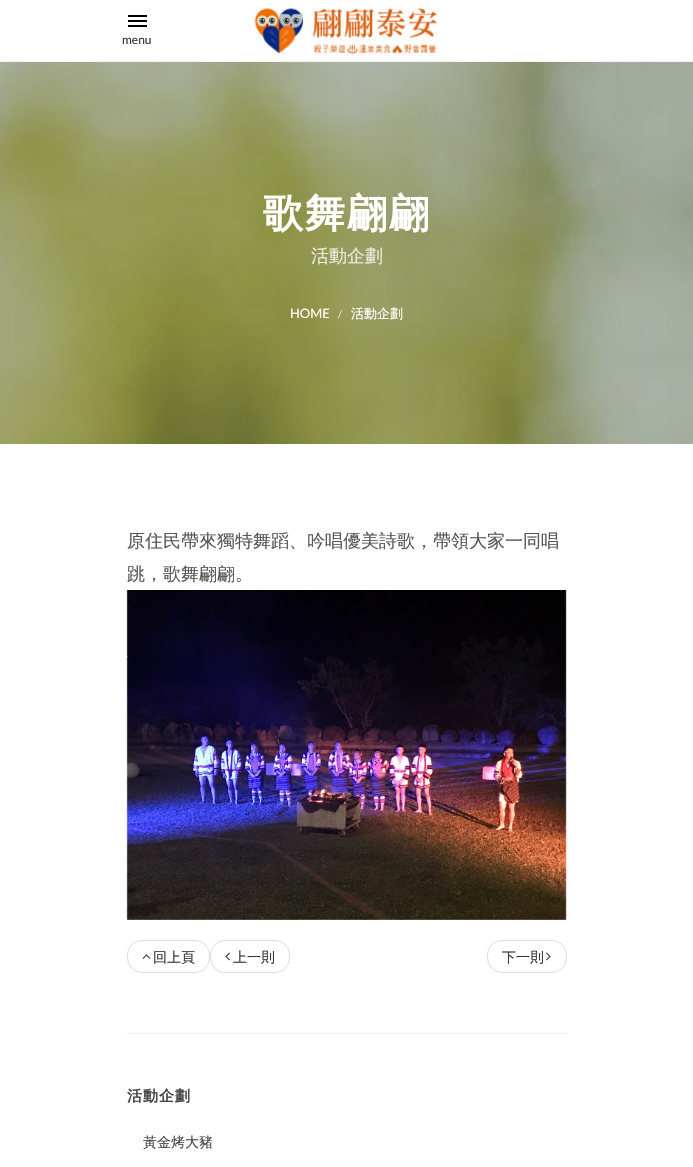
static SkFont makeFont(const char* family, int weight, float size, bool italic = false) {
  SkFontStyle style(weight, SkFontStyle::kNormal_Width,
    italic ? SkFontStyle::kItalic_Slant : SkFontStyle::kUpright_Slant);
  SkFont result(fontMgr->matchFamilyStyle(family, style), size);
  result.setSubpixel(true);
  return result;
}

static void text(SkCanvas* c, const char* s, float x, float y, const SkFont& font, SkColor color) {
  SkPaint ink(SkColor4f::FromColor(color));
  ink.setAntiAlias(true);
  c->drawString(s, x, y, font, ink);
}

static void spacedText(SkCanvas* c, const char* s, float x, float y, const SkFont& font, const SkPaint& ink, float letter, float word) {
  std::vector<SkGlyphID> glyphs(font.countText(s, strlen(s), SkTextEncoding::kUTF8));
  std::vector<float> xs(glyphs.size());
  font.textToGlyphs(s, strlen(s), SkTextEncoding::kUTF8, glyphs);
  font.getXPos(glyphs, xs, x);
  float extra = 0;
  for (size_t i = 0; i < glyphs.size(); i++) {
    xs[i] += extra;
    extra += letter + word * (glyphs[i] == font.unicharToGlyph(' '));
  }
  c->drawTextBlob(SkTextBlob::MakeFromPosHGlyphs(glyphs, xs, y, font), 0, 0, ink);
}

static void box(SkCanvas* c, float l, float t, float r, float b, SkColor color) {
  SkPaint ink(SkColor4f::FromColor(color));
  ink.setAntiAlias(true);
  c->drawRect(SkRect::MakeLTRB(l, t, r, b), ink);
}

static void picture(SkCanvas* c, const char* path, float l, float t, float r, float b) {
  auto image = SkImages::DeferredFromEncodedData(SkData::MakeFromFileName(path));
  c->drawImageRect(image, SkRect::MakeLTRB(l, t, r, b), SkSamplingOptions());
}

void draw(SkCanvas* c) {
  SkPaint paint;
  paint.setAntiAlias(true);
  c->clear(0xffffffff);
  box(c, 0, 61, 693, 62, 0xfff5f5f5);
  box(c, 128, 15, 147, 17, 0xff000000);
  box(c, 128, 20, 147, 22, 0xff000000);
  box(c, 128, 25, 147, 27, 0xff000000);
  SkFont face1 = makeFont("Lato", 400, 12);
  text(c, "menu", 122, 44, face1, 0xff333333);
  picture(c, "img_01.png", 254, 8, 437, 54);
  picture(c, "img_02.png", 0, 62, 693, 444);
  SkFont face2 = makeFont("WenQuanYi Zen Hei", 700, 40);
  paint.setColor(0xffffffff);
  spacedText(c, "歌舞翩翩", 263, 227, face2, paint, 2, 0);
  SkFont face3 = makeFont("WenQuanYi Zen Hei", 500, 18);
  text(c, "活動企劃", 311, 262, face3, 0xffeaebde);
  SkFont face4 = makeFont("Lato", 400, 13);
  text(c, "HOME", 290, 318, face4, 0xffffffff);
  SkFont face5 = makeFont("Lato", 300, 11);
  text(c, "/", 338, 318, face5, 0xffffffff);
  SkFont face6 = makeFont("WenQuanYi Zen Hei", 500, 13);
  text(c, "活動企劃", 351, 318, face6, 0xffffffff);
  box(c, 127, 1033, 567, 1034, 0xffeeeeee);
  text(c, "原住民帶來獨特舞蹈、吟唱優美詩歌，帶領大家一同唱", 127, 547, face3, 0xff555555);
  text(c, "跳，歌舞翩翩。", 127, 580, face3, 0xff555555);
  picture(c, "img_03.png", 126, 590, 567, 920);
  paint.setStyle(SkPaint::kStroke_Style);
  paint.setStrokeWidth(1);
  paint.setColor(0xffdddddd);
  c->drawRoundRect(SkRect::MakeLTRB(127.5f, 940.5f, 209.5f, 972.5f), 14.5f, 14.5f, paint);
  picture(c, "img_04.png", 142, 954, 151, 959);
  SkFont face7 = makeFont("WenQuanYi Zen Hei", 500, 14);
  text(c, "回上頁", 153, 962, face7, 0xff333333);
  c->drawRoundRect(SkRect::MakeLTRB(210.5f, 940.5f, 289.5f, 972.5f), 14.5f, 14.5f, paint);
  picture(c, "img_05.png", 225, 952, 230, 961);
  text(c, "上一則", 233, 962, face7, 0xff333333);
  c->drawRoundRect(SkRect::MakeLTRB(487.5f, 940.5f, 566.5f, 972.5f), 14.5f, 14.5f, paint);
  text(c, "下一則", 502, 962, face7, 0xff333333);
  picture(c, "img_06.png", 546, 952, 551, 961);
  SkFont face8 = makeFont("WenQuanYi Zen Hei", 700, 15);
  paint.setStyle(SkPaint::kFill_Style);
  paint.setColor(0xff444444);
  spacedText(c, "活動企劃", 127, 1101, face8, paint, 1, 0);
  text(c, "黃金烤大豬", 143, 1147, face7, 0xff444444);
}
